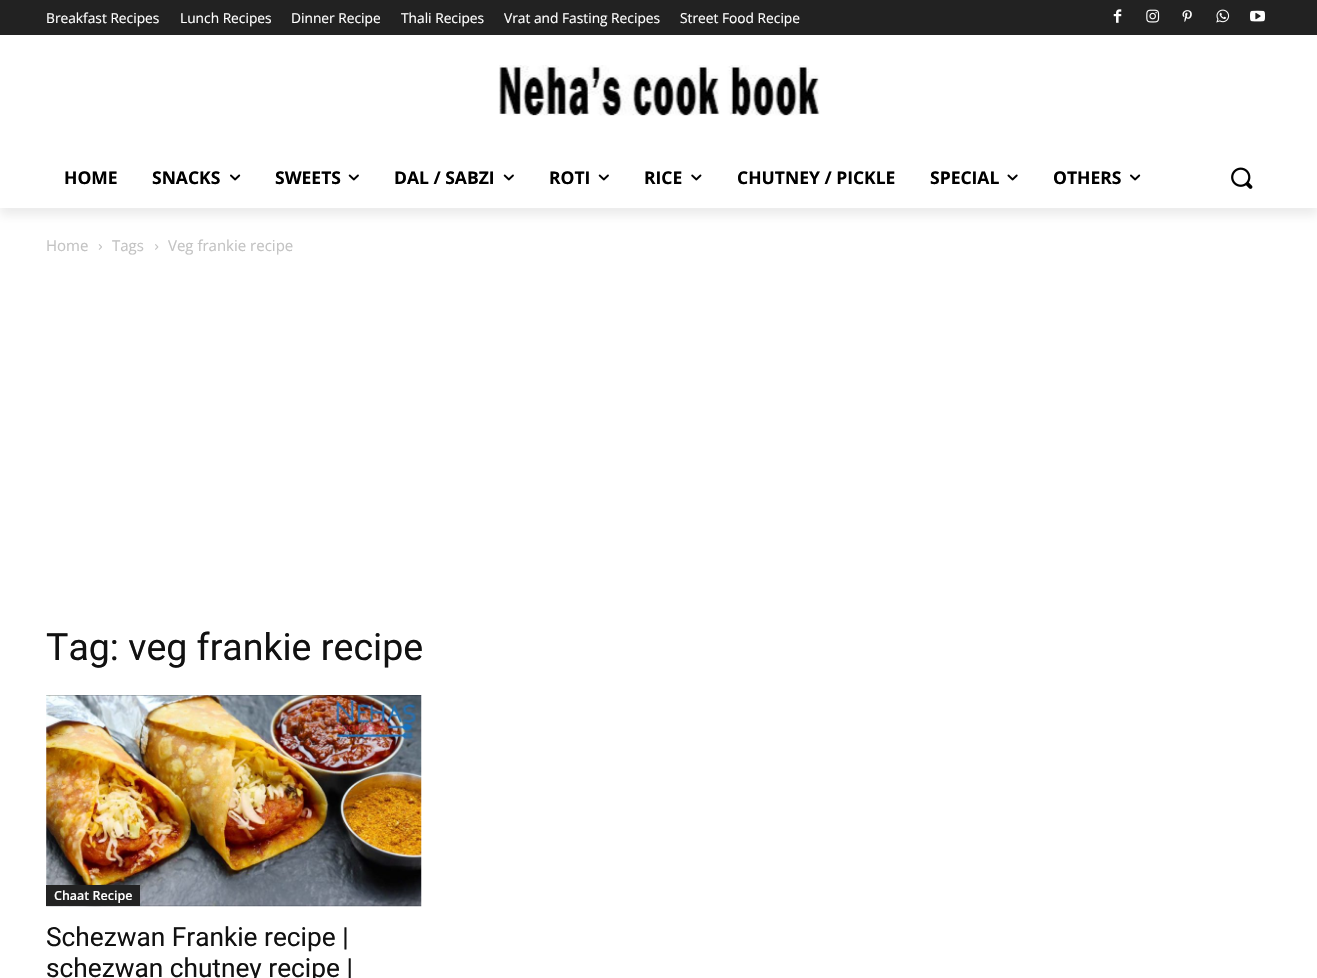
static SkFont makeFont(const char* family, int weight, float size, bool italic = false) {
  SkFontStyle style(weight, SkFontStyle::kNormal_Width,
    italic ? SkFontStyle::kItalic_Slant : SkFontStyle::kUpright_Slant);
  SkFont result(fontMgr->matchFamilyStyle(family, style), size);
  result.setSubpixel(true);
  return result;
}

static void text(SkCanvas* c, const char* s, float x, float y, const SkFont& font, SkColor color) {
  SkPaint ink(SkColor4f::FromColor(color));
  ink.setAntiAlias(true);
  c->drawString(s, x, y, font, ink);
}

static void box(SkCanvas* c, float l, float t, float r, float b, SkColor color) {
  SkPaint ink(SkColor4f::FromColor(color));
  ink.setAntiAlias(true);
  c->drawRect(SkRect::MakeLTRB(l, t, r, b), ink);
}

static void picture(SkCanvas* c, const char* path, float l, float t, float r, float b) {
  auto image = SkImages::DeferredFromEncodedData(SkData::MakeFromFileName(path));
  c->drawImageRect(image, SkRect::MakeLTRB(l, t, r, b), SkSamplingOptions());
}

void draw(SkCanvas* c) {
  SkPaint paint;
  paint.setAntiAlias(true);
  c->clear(0xffffffff);
  box(c, 0, 0, 1317, 35, 0xff222222);
  picture(c, "img_01.png", 1113, 9, 1122, 23);
  picture(c, "img_02.png", 1146, 9, 1160, 23);
  picture(c, "img_03.png", 1182, 10, 1192, 22);
  picture(c, "img_04.png", 1216, 9, 1230, 23);
  picture(c, "img_05.png", 1250, 10, 1265, 22);
  picture(c, "img_06.png", 499, 65, 820, 116);
  c->save();
  c->clipPath(SkPathBuilder(SkPathFillType::kEvenOdd).moveTo(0, 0).lineTo(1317, 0).lineTo(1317, 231).lineTo(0, 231).close().moveTo(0, 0).lineTo(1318, 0).lineTo(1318, 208).lineTo(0, 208).close().detach(), true);
  paint.setColor(0x14000000);
  paint.setMaskFilter(SkMaskFilter::MakeBlur(kNormal_SkBlurStyle, 5));
  c->drawRect(SkRect::MakeLTRB(0, 8, 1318, 215), paint);
  paint.setMaskFilter(nullptr);
  c->restore();
  SkFont face1 = makeFont("Open Sans", 400, 13.75f);
  text(c, "Breakfast Recipes", 46, 23, face1, 0xffffffff);
  text(c, "Lunch Recipes", 180, 23, face1, 0xffffffff);
  text(c, "Dinner Recipe", 291, 23, face1, 0xffffffff);
  text(c, "Thali Recipes", 401, 23, face1, 0xffffffff);
  text(c, "Vrat and Fasting Recipes", 504, 23, face1, 0xffffffff);
  text(c, "Street Food Recipe", 680, 23, face1, 0xffffffff);
  SkFont face2 = makeFont("Open Sans", 700, 17.5f);
  text(c, "HOME", 64, 184, face2, 0xff000000);
  text(c, "SNACKS", 152, 184, face2, 0xff000000);
  picture(c, "img_07.png", 230, 174, 241, 181);
  text(c, "SWEETS", 275, 184, face2, 0xff000000);
  picture(c, "img_08.png", 348, 174, 359, 181);
  text(c, "DAL / SABZI", 394, 184, face2, 0xff000000);
  picture(c, "img_08.png", 503, 174, 514, 181);
  text(c, "ROTI", 549, 184, face2, 0xff000000);
  picture(c, "img_08.png", 598, 174, 609, 181);
  text(c, "RICE", 644, 184, face2, 0xff000000);
  picture(c, "img_09.png", 691, 174, 702, 181);
  text(c, "CHUTNEY / PICKLE", 737, 184, face2, 0xff000000);
  text(c, "SPECIAL", 930, 184, face2, 0xff000000);
  picture(c, "img_10.png", 1007, 174, 1018, 181);
  text(c, "OTHERS", 1053, 184, face2, 0xff000000);
  picture(c, "img_07.png", 1130, 174, 1141, 181);
  picture(c, "img_11.png", 1231, 167, 1253, 189);
  SkFont face3 = makeFont("Open Sans", 400, 15);
  text(c, "Home", 46, 251, face3, 0xffc3c3c3);
  picture(c, "img_12.png", 98, 244, 102, 250);
  text(c, "Tags", 112, 251, face3, 0xffc3c3c3);
  picture(c, "img_13.png", 155, 244, 159, 250);
  text(c, "Veg frankie recipe", 168, 251, face3, 0xffc3c3c3);
  SkFont face4 = makeFont("Roboto", 400, 37.5f);
  text(c, "Tag: veg frankie recipe", 46, 660, face4, 0xff111111);
  picture(c, "img_14.png", 46, 695, 422, 907);
  box(c, 46, 885, 140, 906, 0xff222222);
  SkFont face5 = makeFont("Open Sans", 600, 12.5f);
  text(c, "Chaat Recipe", 54, 900, face5, 0xffffffff);
  SkFont face6 = makeFont("Roboto", 400, 26.25f);
  text(c, "Schezwan Frankie recipe |", 46, 946, face6, 0xff111111);
  text(c, "schezwan chutney recipe |", 46, 977, face6, 0xff111111);
}
